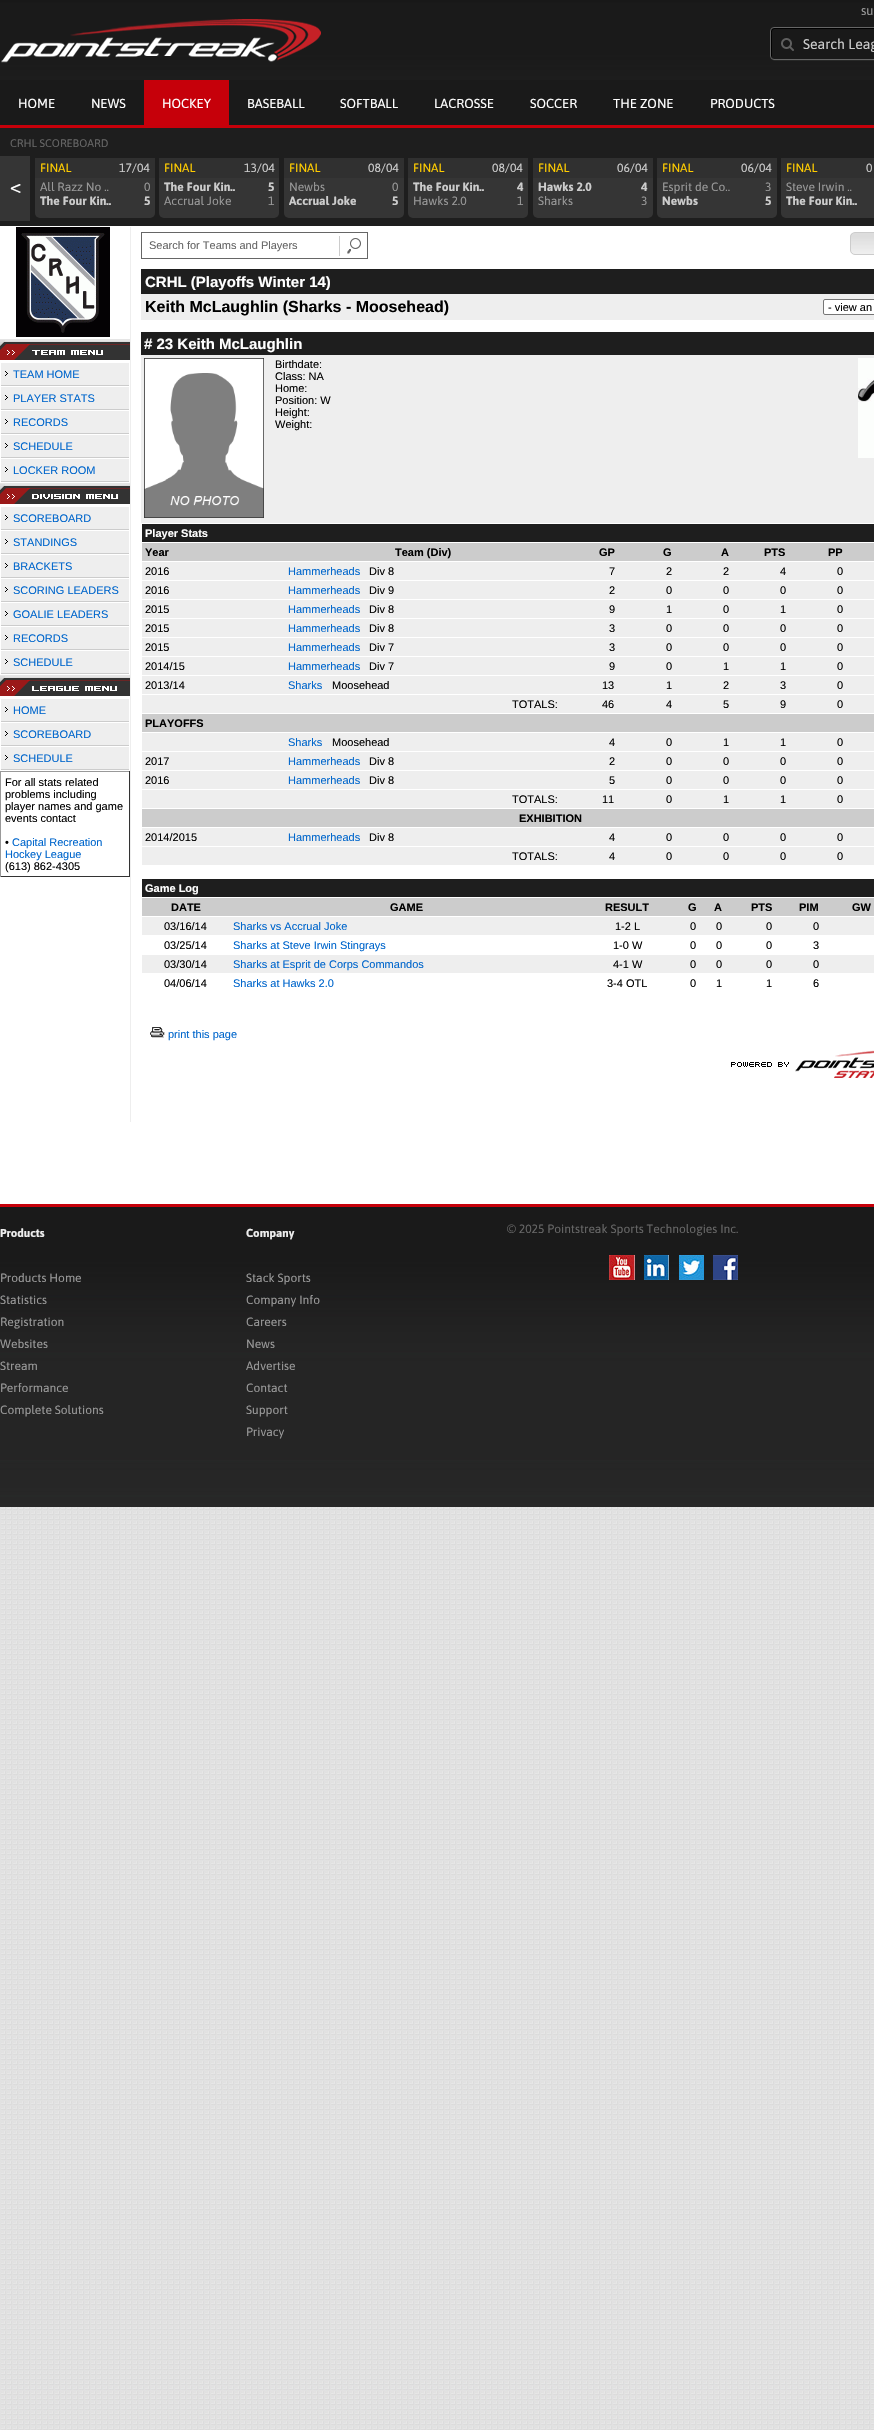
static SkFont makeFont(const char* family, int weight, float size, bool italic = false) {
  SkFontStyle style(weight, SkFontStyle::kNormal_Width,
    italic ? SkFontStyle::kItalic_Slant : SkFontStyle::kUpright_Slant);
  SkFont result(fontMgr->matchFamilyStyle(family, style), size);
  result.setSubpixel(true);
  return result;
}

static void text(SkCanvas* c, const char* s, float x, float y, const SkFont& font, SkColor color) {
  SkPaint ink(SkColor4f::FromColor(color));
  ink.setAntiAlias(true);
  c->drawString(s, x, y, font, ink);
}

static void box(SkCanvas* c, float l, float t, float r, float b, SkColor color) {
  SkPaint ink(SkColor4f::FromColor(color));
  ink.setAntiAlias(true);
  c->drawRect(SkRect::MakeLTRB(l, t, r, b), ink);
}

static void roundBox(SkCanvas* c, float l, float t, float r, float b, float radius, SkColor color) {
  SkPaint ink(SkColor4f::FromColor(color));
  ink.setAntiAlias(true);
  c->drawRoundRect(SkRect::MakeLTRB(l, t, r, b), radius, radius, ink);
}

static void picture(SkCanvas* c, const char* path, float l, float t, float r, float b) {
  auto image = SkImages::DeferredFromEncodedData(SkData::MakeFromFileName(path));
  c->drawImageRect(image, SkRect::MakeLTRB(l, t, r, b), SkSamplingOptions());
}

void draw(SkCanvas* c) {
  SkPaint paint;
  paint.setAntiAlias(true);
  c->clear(0xffffffff);
  picture(c, "img_01.png", 0, 1507, 874, 2430);
  picture(c, "img_02.png", 0, 0, 874, 80);
  box(c, 0, 125, 874, 128, 0xffc6000a);
  picture(c, "img_03.png", 1, 19, 321, 63);
  SkFont face1 = makeFont("Asap", 400, 13);
  text(c, "su", 861, 15, face1, 0xff999999);
  paint.setColor(0xff272827);
  c->drawPath(SkPathBuilder().moveTo(772, 59).cubicTo(772, 60, 774, 61, 775, 61).lineTo(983, 61).cubicTo(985, 61, 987, 59, 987, 57).lineTo(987, 32).cubicTo(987, 31, 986, 29, 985, 29).lineTo(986, 31).lineTo(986, 56).cubicTo(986, 58, 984, 60, 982, 60).lineTo(774, 60).close().detach(), paint);
  paint.setColor(0xff191919);
  c->drawPath(SkPathBuilder().moveTo(774, 27).lineTo(874, 27).lineTo(874, 60).lineTo(774, 60).cubicTo(772, 60, 770, 58, 770, 56).lineTo(770, 31).cubicTo(770, 29, 772, 27, 774, 27).close().detach(), paint);
  picture(c, "img_04.png", 781, 38, 794, 51);
  paint.setColor(0xff000000);
  c->drawPath(SkPathBuilder().moveTo(775, 29).lineTo(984, 29).lineTo(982, 28).lineTo(774, 28).cubicTo(770, 28, 771, 33, 771, 35).lineTo(771, 44).cubicTo(771, 46, 770, 57, 772, 58).lineTo(772, 36).cubicTo(772, 34, 771, 29, 775, 29).close().detach(), paint);
  paint.setStyle(SkPaint::kStroke_Style);
  paint.setStrokeWidth(1);
  paint.setColor(0xff666666);
  c->drawRoundRect(SkRect::MakeLTRB(770.5f, 27.5f, 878.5f, 59.5f), 3.5f, 3.5f, paint);
  SkFont face2 = makeFont("Asap", 400, 14);
  text(c, "Search Leag", 803, 49, face2, 0xffcccccc);
  box(c, 0, 80, 874, 125, 0xff1a1a1a);
  text(c, "HOME", 18, 108, face1, 0xffffffff);
  text(c, "NEWS", 91, 108, face1, 0xffffffff);
  box(c, 144, 80, 229, 125, 0xffc6000a);
  text(c, "HOCKEY", 162, 108, face1, 0xffffffff);
  text(c, "BASEBALL", 247, 108, face1, 0xffffffff);
  text(c, "SOFTBALL", 340, 108, face1, 0xffffffff);
  text(c, "LACROSSE", 434, 108, face1, 0xffffffff);
  text(c, "SOCCER", 530, 108, face1, 0xffffffff);
  text(c, "THE ZONE", 613, 108, face1, 0xffffffff);
  text(c, "PRODUCTS", 710, 108, face1, 0xffffffff);
  box(c, 0, 128, 874, 226, 0xff1e1e1e);
  SkFont face3 = makeFont("Asap", 400, 11);
  text(c, "CRHL SCOREBOARD", 10, 147, face3, 0xff666666);
  box(c, 0, 156, 30, 221, 0xff353535);
  SkFont face4 = makeFont("Asap", 400, 20);
  text(c, "<", 10, 193, face4, 0xffffffff);
  roundBox(c, 35, 158, 155, 218, 5, 0xff353535);
  box(c, 35, 158, 155, 178, 0xff303030);
  SkFont face5 = makeFont("Asap", 400, 12);
  text(c, "FINAL", 40, 172, face5, 0xffffcc00);
  text(c, "17/04", 119, 172, face5, 0xffcccccc);
  text(c, "All Razz No ..", 40, 191, face5, 0xff999999);
  text(c, "0", 144, 191, face5, 0xff999999);
  SkFont face6 = makeFont("Asap", 700, 12);
  text(c, "The Four Kin..", 40, 205, face6, 0xffcccccc);
  text(c, "5", 144, 205, face6, 0xffcccccc);
  roundBox(c, 159, 158, 279, 218, 5, 0xff353535);
  box(c, 159, 158, 279, 178, 0xff303030);
  text(c, "FINAL", 164, 172, face5, 0xffffcc00);
  text(c, "13/04", 244, 172, face5, 0xffcccccc);
  text(c, "The Four Kin..", 164, 191, face6, 0xffcccccc);
  text(c, "5", 268, 191, face6, 0xffcccccc);
  text(c, "Accrual Joke", 164, 205, face5, 0xff999999);
  text(c, "1", 268, 205, face5, 0xff999999);
  roundBox(c, 284, 158, 404, 218, 5, 0xff353535);
  box(c, 284, 158, 404, 178, 0xff303030);
  text(c, "FINAL", 289, 172, face5, 0xffffcc00);
  text(c, "08/04", 368, 172, face5, 0xffcccccc);
  text(c, "Newbs", 289, 191, face5, 0xff999999);
  text(c, "0", 392, 191, face5, 0xff999999);
  text(c, "Accrual Joke", 289, 205, face6, 0xffcccccc);
  text(c, "5", 392, 205, face6, 0xffcccccc);
  roundBox(c, 408, 158, 528, 218, 5, 0xff353535);
  box(c, 408, 158, 528, 178, 0xff303030);
  text(c, "FINAL", 413, 172, face5, 0xffffcc00);
  text(c, "08/04", 492, 172, face5, 0xffcccccc);
  text(c, "The Four Kin..", 413, 191, face6, 0xffcccccc);
  text(c, "4", 517, 191, face6, 0xffcccccc);
  text(c, "Hawks 2.0", 413, 205, face5, 0xff999999);
  text(c, "1", 517, 205, face5, 0xff999999);
  roundBox(c, 533, 158, 653, 218, 5, 0xff353535);
  box(c, 533, 158, 653, 178, 0xff303030);
  text(c, "FINAL", 538, 172, face5, 0xffffcc00);
  text(c, "06/04", 617, 172, face5, 0xffcccccc);
  text(c, "Hawks 2.0", 538, 191, face6, 0xffcccccc);
  text(c, "4", 641, 191, face6, 0xffcccccc);
  text(c, "Sharks", 538, 205, face5, 0xff999999);
  text(c, "3", 641, 205, face5, 0xff999999);
  roundBox(c, 657, 158, 777, 218, 5, 0xff353535);
  box(c, 657, 158, 777, 178, 0xff303030);
  text(c, "FINAL", 662, 172, face5, 0xffffcc00);
  text(c, "06/04", 741, 172, face5, 0xffcccccc);
  text(c, "Esprit de Co..", 662, 191, face5, 0xff999999);
  text(c, "3", 765, 191, face5, 0xff999999);
  text(c, "Newbs", 662, 205, face6, 0xffcccccc);
  text(c, "5", 765, 205, face6, 0xffcccccc);
  roundBox(c, 781, 158, 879, 218, 5, 0xff353535);
  box(c, 781, 158, 874, 178, 0xff303030);
  text(c, "FINAL", 786, 172, face5, 0xffffcc00);
  text(c, "0", 866, 172, face5, 0xffcccccc);
  text(c, "Steve Irwin ..", 786, 191, face5, 0xff999999);
  text(c, "The Four Kin..", 786, 205, face6, 0xffcccccc);
  box(c, 130, 227, 131, 1122, 0xffeeeeee);
  picture(c, "img_05.png", 16, 227, 110, 337);
  picture(c, "img_06.png", 0, 339, 130, 360);
  box(c, 1, 363, 129, 385, 0xffeeeeee);
  box(c, 1, 385, 129, 386, 0xffcccccc);
  picture(c, "img_07.png", 5, 371, 8, 376);
  SkFont face7 = makeFont("Liberation Sans", 400, 11);
  text(c, "TEAM HOME", 13, 378, face7, 0xff0066cc);
  box(c, 1, 387, 129, 409, 0xffeeeeee);
  box(c, 1, 409, 129, 410, 0xffcccccc);
  picture(c, "img_07.png", 5, 395, 8, 400);
  text(c, "PLAYER STATS", 13, 402, face7, 0xff0066cc);
  box(c, 1, 411, 129, 433, 0xffeeeeee);
  box(c, 1, 433, 129, 434, 0xffcccccc);
  picture(c, "img_07.png", 5, 419, 8, 424);
  text(c, "RECORDS", 13, 426, face7, 0xff0066cc);
  box(c, 1, 435, 129, 457, 0xffeeeeee);
  box(c, 1, 457, 129, 458, 0xffcccccc);
  picture(c, "img_07.png", 5, 443, 8, 448);
  text(c, "SCHEDULE", 13, 450, face7, 0xff0066cc);
  box(c, 1, 459, 129, 481, 0xffeeeeee);
  box(c, 1, 481, 129, 482, 0xffcccccc);
  picture(c, "img_07.png", 5, 467, 8, 472);
  text(c, "LOCKER ROOM", 13, 474, face7, 0xff0066cc);
  picture(c, "img_08.png", 0, 483, 130, 504);
  box(c, 1, 507, 129, 529, 0xffeeeeee);
  box(c, 1, 529, 129, 530, 0xffcccccc);
  picture(c, "img_07.png", 5, 515, 8, 520);
  text(c, "SCOREBOARD", 13, 522, face7, 0xff0066cc);
  box(c, 1, 531, 129, 553, 0xffeeeeee);
  box(c, 1, 553, 129, 554, 0xffcccccc);
  picture(c, "img_07.png", 5, 539, 8, 544);
  text(c, "STANDINGS", 13, 546, face7, 0xff0066cc);
  box(c, 1, 555, 129, 577, 0xffeeeeee);
  box(c, 1, 577, 129, 578, 0xffcccccc);
  picture(c, "img_07.png", 5, 563, 8, 568);
  text(c, "BRACKETS", 13, 570, face7, 0xff0066cc);
  box(c, 1, 579, 129, 601, 0xffeeeeee);
  box(c, 1, 601, 129, 602, 0xffcccccc);
  picture(c, "img_07.png", 5, 587, 8, 592);
  text(c, "SCORING LEADERS", 13, 594, face7, 0xff0066cc);
  box(c, 1, 603, 129, 625, 0xffeeeeee);
  box(c, 1, 625, 129, 626, 0xffcccccc);
  picture(c, "img_07.png", 5, 611, 8, 616);
  text(c, "GOALIE LEADERS", 13, 618, face7, 0xff0066cc);
  box(c, 1, 627, 129, 649, 0xffeeeeee);
  box(c, 1, 649, 129, 650, 0xffcccccc);
  picture(c, "img_07.png", 5, 635, 8, 640);
  text(c, "RECORDS", 13, 642, face7, 0xff0066cc);
  box(c, 1, 651, 129, 673, 0xffeeeeee);
  box(c, 1, 673, 129, 674, 0xffcccccc);
  picture(c, "img_07.png", 5, 659, 8, 664);
  text(c, "SCHEDULE", 13, 666, face7, 0xff0066cc);
  picture(c, "img_09.png", 0, 675, 130, 696);
  box(c, 1, 699, 129, 721, 0xffeeeeee);
  box(c, 1, 721, 129, 722, 0xffcccccc);
  picture(c, "img_07.png", 5, 707, 8, 712);
  text(c, "HOME", 13, 714, face7, 0xff0066cc);
  box(c, 1, 723, 129, 745, 0xffeeeeee);
  box(c, 1, 745, 129, 746, 0xffcccccc);
  picture(c, "img_07.png", 5, 731, 8, 736);
  text(c, "SCOREBOARD", 13, 738, face7, 0xff0066cc);
  box(c, 1, 747, 129, 769, 0xffeeeeee);
  box(c, 1, 769, 129, 770, 0xffcccccc);
  picture(c, "img_07.png", 5, 755, 8, 760);
  text(c, "SCHEDULE", 13, 762, face7, 0xff0066cc);
  box(c, 0, 771, 130, 772, 0xff999999);
  box(c, 129, 771, 130, 877, 0xff333333);
  box(c, 0, 876, 130, 877, 0xff333333);
  box(c, 0, 771, 1, 877, 0xff999999);
  text(c, "For all stats related", 5, 786, face7, 0xff000000);
  text(c, "problems including", 5, 798, face7, 0xff000000);
  text(c, "player names and game", 5, 810, face7, 0xff000000);
  text(c, "events contact", 5, 822, face7, 0xff000000);
  text(c, "•", 5, 846, face7, 0xff000000);
  text(c, "Capital Recreation", 12, 846, face7, 0xff0066cc);
  text(c, "Hockey League", 5, 858, face7, 0xff0066cc);
  text(c, "(613) 862-4305", 5, 870, face7, 0xff000000);
  c->drawRect(SkRect::MakeLTRB(141.5f, 232.5f, 339.5f, 258.5f), paint);
  text(c, "Search for Teams and Players", 149, 249, face7, 0xff666666);
  picture(c, "img_10.png", 339, 232, 368, 259);
  picture(c, "img_11.png", 850, 233, 874, 255);
  paint.setColor(0xffcccccc);
  c->drawRoundRect(SkRect::MakeLTRB(850.5f, 232.5f, 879.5f, 254.5f), 4.5f, 4.5f, paint);
  box(c, 141, 269, 874, 294, 0xff1e1e1e);
  SkFont face8 = makeFont("Liberation Sans", 700, 15);
  text(c, "CRHL (Playoffs Winter 14)", 145, 287, face8, 0xffffffff);
  box(c, 141, 294, 874, 320, 0xffeeeeee);
  SkFont face9 = makeFont("Liberation Sans", 700, 16);
  text(c, "Keith McLaughlin (Sharks - Moosehead)", 145, 312, face9, 0xff000000);
  paint.setStyle(SkPaint::kFill_Style);
  paint.setColor(0xffffffff);
  c->drawRoundRect(SkRect::MakeLTRB(823.5f, 299.5f, 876.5f, 314.5f), 1.5f, 1.5f, paint);
  paint.setStyle(SkPaint::kStroke_Style);
  paint.setColor(0xff767676);
  c->drawRoundRect(SkRect::MakeLTRB(823.5f, 299.5f, 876.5f, 314.5f), 1.5f, 1.5f, paint);
  text(c, "- view an", 828, 311, face7, 0xff000000);
  box(c, 141, 332, 874, 355, 0xff1e1e1e);
  text(c, "# 23 Keith McLaughlin", 144, 349, face8, 0xffffffff);
  box(c, 141, 355, 874, 523, 0xffeeeeee);
  picture(c, "img_12.png", 144, 358, 264, 518);
  text(c, "Birthdate:", 275, 368, face7, 0xff000000);
  text(c, "Class: NA", 275, 380, face7, 0xff000000);
  text(c, "Home:", 275, 392, face7, 0xff000000);
  text(c, "Position: W", 275, 404, face7, 0xff000000);
  text(c, "Height:", 275, 416, face7, 0xff000000);
  text(c, "Weight:", 275, 428, face7, 0xff000000);
  picture(c, "img_13.png", 858, 358, 874, 458);
  box(c, 142, 524, 874, 542, 0xff1e1e1e);
  SkFont face10 = makeFont("Liberation Sans", 700, 11);
  text(c, "Player Stats", 145, 537, face10, 0xffffffff);
  box(c, 142, 543, 874, 561, 0xffcccccc);
  text(c, "Year", 145, 556, face10, 0xff000000);
  text(c, "Team (Div)", 395, 556, face10, 0xff000000);
  text(c, "GP", 599, 556, face10, 0xff000000);
  text(c, "G", 663, 556, face10, 0xff000000);
  text(c, "A", 721, 556, face10, 0xff000000);
  text(c, "PTS", 764, 556, face10, 0xff000000);
  text(c, "PP", 828, 556, face10, 0xff000000);
  box(c, 142, 562, 874, 580, 0xffeeeeee);
  text(c, "2016", 145, 575, face7, 0xff000000);
  text(c, "Hammerheads", 288, 575, face7, 0xff0066cc);
  text(c, "Div 8", 369, 575, face7, 0xff000000);
  text(c, "7", 609, 575, face7, 0xff000000);
  text(c, "2", 666, 575, face7, 0xff000000);
  text(c, "2", 723, 575, face7, 0xff000000);
  text(c, "4", 780, 575, face7, 0xff000000);
  text(c, "0", 837, 575, face7, 0xff000000);
  box(c, 142, 581, 874, 599, 0xffeeeeee);
  text(c, "2016", 145, 594, face7, 0xff000000);
  text(c, "Hammerheads", 288, 594, face7, 0xff0066cc);
  text(c, "Div 9", 369, 594, face7, 0xff000000);
  text(c, "2", 609, 594, face7, 0xff000000);
  text(c, "0", 666, 594, face7, 0xff000000);
  text(c, "0", 723, 594, face7, 0xff000000);
  text(c, "0", 780, 594, face7, 0xff000000);
  text(c, "0", 837, 594, face7, 0xff000000);
  box(c, 142, 600, 874, 618, 0xffeeeeee);
  text(c, "2015", 145, 613, face7, 0xff000000);
  text(c, "Hammerheads", 288, 613, face7, 0xff0066cc);
  text(c, "Div 8", 369, 613, face7, 0xff000000);
  text(c, "9", 609, 613, face7, 0xff000000);
  text(c, "1", 666, 613, face7, 0xff000000);
  text(c, "0", 723, 613, face7, 0xff000000);
  text(c, "1", 780, 613, face7, 0xff000000);
  text(c, "0", 837, 613, face7, 0xff000000);
  box(c, 142, 619, 874, 637, 0xffeeeeee);
  text(c, "2015", 145, 632, face7, 0xff000000);
  text(c, "Hammerheads", 288, 632, face7, 0xff0066cc);
  text(c, "Div 8", 369, 632, face7, 0xff000000);
  text(c, "3", 609, 632, face7, 0xff000000);
  text(c, "0", 666, 632, face7, 0xff000000);
  text(c, "0", 723, 632, face7, 0xff000000);
  text(c, "0", 780, 632, face7, 0xff000000);
  text(c, "0", 837, 632, face7, 0xff000000);
  box(c, 142, 638, 874, 656, 0xffeeeeee);
  text(c, "2015", 145, 651, face7, 0xff000000);
  text(c, "Hammerheads", 288, 651, face7, 0xff0066cc);
  text(c, "Div 7", 369, 651, face7, 0xff000000);
  text(c, "3", 609, 651, face7, 0xff000000);
  text(c, "0", 666, 651, face7, 0xff000000);
  text(c, "0", 723, 651, face7, 0xff000000);
  text(c, "0", 780, 651, face7, 0xff000000);
  text(c, "0", 837, 651, face7, 0xff000000);
  box(c, 142, 657, 874, 675, 0xffeeeeee);
  text(c, "2014/15", 145, 670, face7, 0xff000000);
  text(c, "Hammerheads", 288, 670, face7, 0xff0066cc);
  text(c, "Div 7", 369, 670, face7, 0xff000000);
  text(c, "9", 609, 670, face7, 0xff000000);
  text(c, "0", 666, 670, face7, 0xff000000);
  text(c, "1", 723, 670, face7, 0xff000000);
  text(c, "1", 780, 670, face7, 0xff000000);
  text(c, "0", 837, 670, face7, 0xff000000);
  box(c, 142, 676, 874, 694, 0xffeeeeee);
  text(c, "2013/14", 145, 689, face7, 0xff000000);
  text(c, "Sharks", 288, 689, face7, 0xff0066cc);
  text(c, "Moosehead", 332, 689, face7, 0xff000000);
  text(c, "13", 602, 689, face7, 0xff000000);
  text(c, "1", 666, 689, face7, 0xff000000);
  text(c, "2", 723, 689, face7, 0xff000000);
  text(c, "3", 780, 689, face7, 0xff000000);
  text(c, "0", 837, 689, face7, 0xff000000);
  box(c, 142, 695, 874, 713, 0xffeeeeee);
  text(c, "TOTALS:", 512, 708, face7, 0xff000000);
  text(c, "46", 602, 708, face7, 0xff000000);
  text(c, "4", 666, 708, face7, 0xff000000);
  text(c, "5", 723, 708, face7, 0xff000000);
  text(c, "9", 780, 708, face7, 0xff000000);
  text(c, "0", 837, 708, face7, 0xff000000);
  box(c, 142, 714, 874, 732, 0xffcccccc);
  text(c, "PLAYOFFS", 145, 727, face10, 0xff000000);
  box(c, 142, 733, 874, 751, 0xffeeeeee);
  text(c, "Sharks", 288, 746, face7, 0xff0066cc);
  text(c, "Moosehead", 332, 746, face7, 0xff000000);
  text(c, "4", 609, 746, face7, 0xff000000);
  text(c, "0", 666, 746, face7, 0xff000000);
  text(c, "1", 723, 746, face7, 0xff000000);
  text(c, "1", 780, 746, face7, 0xff000000);
  text(c, "0", 837, 746, face7, 0xff000000);
  box(c, 142, 752, 874, 770, 0xffeeeeee);
  text(c, "2017", 145, 765, face7, 0xff000000);
  text(c, "Hammerheads", 288, 765, face7, 0xff0066cc);
  text(c, "Div 8", 369, 765, face7, 0xff000000);
  text(c, "2", 609, 765, face7, 0xff000000);
  text(c, "0", 666, 765, face7, 0xff000000);
  text(c, "0", 723, 765, face7, 0xff000000);
  text(c, "0", 780, 765, face7, 0xff000000);
  text(c, "0", 837, 765, face7, 0xff000000);
  box(c, 142, 771, 874, 789, 0xffeeeeee);
  text(c, "2016", 145, 784, face7, 0xff000000);
  text(c, "Hammerheads", 288, 784, face7, 0xff0066cc);
  text(c, "Div 8", 369, 784, face7, 0xff000000);
  text(c, "5", 609, 784, face7, 0xff000000);
  text(c, "0", 666, 784, face7, 0xff000000);
  text(c, "0", 723, 784, face7, 0xff000000);
  text(c, "0", 780, 784, face7, 0xff000000);
  text(c, "0", 837, 784, face7, 0xff000000);
  box(c, 142, 790, 874, 808, 0xffeeeeee);
  text(c, "TOTALS:", 512, 803, face7, 0xff000000);
  text(c, "11", 602, 803, face7, 0xff000000);
  text(c, "0", 666, 803, face7, 0xff000000);
  text(c, "1", 723, 803, face7, 0xff000000);
  text(c, "1", 780, 803, face7, 0xff000000);
  text(c, "0", 837, 803, face7, 0xff000000);
  box(c, 142, 809, 874, 827, 0xffcccccc);
  text(c, "EXHIBITION", 519, 822, face10, 0xff000000);
  box(c, 142, 828, 874, 846, 0xffeeeeee);
  text(c, "2014/2015", 145, 841, face7, 0xff000000);
  text(c, "Hammerheads", 288, 841, face7, 0xff0066cc);
  text(c, "Div 8", 369, 841, face7, 0xff000000);
  text(c, "4", 609, 841, face7, 0xff000000);
  text(c, "0", 666, 841, face7, 0xff000000);
  text(c, "0", 723, 841, face7, 0xff000000);
  text(c, "0", 780, 841, face7, 0xff000000);
  text(c, "0", 837, 841, face7, 0xff000000);
  box(c, 142, 847, 874, 865, 0xffeeeeee);
  text(c, "TOTALS:", 512, 860, face7, 0xff000000);
  text(c, "4", 609, 860, face7, 0xff000000);
  text(c, "0", 666, 860, face7, 0xff000000);
  text(c, "0", 723, 860, face7, 0xff000000);
  text(c, "0", 780, 860, face7, 0xff000000);
  text(c, "0", 837, 860, face7, 0xff000000);
  box(c, 142, 879, 874, 897, 0xff1e1e1e);
  text(c, "Game Log", 145, 892, face10, 0xffffffff);
  box(c, 142, 898, 874, 916, 0xffcccccc);
  text(c, "DATE", 171, 911, face10, 0xff000000);
  text(c, "GAME", 390, 911, face10, 0xff000000);
  text(c, "RESULT", 605, 911, face10, 0xff000000);
  text(c, "G", 688, 911, face10, 0xff000000);
  text(c, "A", 714, 911, face10, 0xff000000);
  text(c, "PTS", 751, 911, face10, 0xff000000);
  text(c, "PIM", 799, 911, face10, 0xff000000);
  text(c, "GW", 852, 911, face10, 0xff000000);
  box(c, 142, 917, 874, 935, 0xffeeeeee);
  text(c, "03/16/14", 164, 930, face7, 0xff000000);
  text(c, "Sharks vs Accrual Joke", 233, 930, face7, 0xff0066cc);
  text(c, "1-2 L", 615, 930, face7, 0xff000000);
  text(c, "0", 690, 930, face7, 0xff000000);
  text(c, "0", 716, 930, face7, 0xff000000);
  text(c, "0", 766, 930, face7, 0xff000000);
  text(c, "0", 813, 930, face7, 0xff000000);
  text(c, "03/25/14", 164, 949, face7, 0xff000000);
  text(c, "Sharks at Steve Irwin Stingrays", 233, 949, face7, 0xff0066cc);
  text(c, "1-0 W", 613, 949, face7, 0xff000000);
  text(c, "0", 690, 949, face7, 0xff000000);
  text(c, "0", 716, 949, face7, 0xff000000);
  text(c, "0", 766, 949, face7, 0xff000000);
  text(c, "3", 813, 949, face7, 0xff000000);
  box(c, 142, 955, 874, 973, 0xffeeeeee);
  text(c, "03/30/14", 164, 968, face7, 0xff000000);
  text(c, "Sharks at Esprit de Corps Commandos", 233, 968, face7, 0xff0066cc);
  text(c, "4-1 W", 613, 968, face7, 0xff000000);
  text(c, "0", 690, 968, face7, 0xff000000);
  text(c, "0", 716, 968, face7, 0xff000000);
  text(c, "0", 766, 968, face7, 0xff000000);
  text(c, "0", 813, 968, face7, 0xff000000);
  text(c, "04/06/14", 164, 987, face7, 0xff000000);
  text(c, "Sharks at Hawks 2.0", 233, 987, face7, 0xff0066cc);
  text(c, "3-4 OTL", 607, 987, face7, 0xff000000);
  text(c, "0", 690, 987, face7, 0xff000000);
  text(c, "1", 716, 987, face7, 0xff000000);
  text(c, "1", 766, 987, face7, 0xff000000);
  text(c, "6", 813, 987, face7, 0xff000000);
  picture(c, "img_14.png", 150, 1027, 165, 1038);
  text(c, "print this page", 168, 1038, face7, 0xff0066cc);
  picture(c, "img_15.png", 731, 1050, 874, 1078);
  picture(c, "img_16.png", 0, 1207, 874, 1507);
  box(c, 0, 1204, 874, 1207, 0xffc6000a);
  SkFont face11 = makeFont("Asap", 700, 11.5f);
  text(c, "Products", 0, 1237, face11, 0xffeeeeee);
  text(c, "Products Home", 0, 1282, face5, 0xff999999);
  text(c, "Statistics", 0, 1304, face5, 0xff999999);
  text(c, "Registration", 0, 1326, face5, 0xff999999);
  text(c, "Websites", 0, 1348, face5, 0xff999999);
  text(c, "Stream", 0, 1370, face5, 0xff999999);
  text(c, "Performance", 0, 1392, face5, 0xff999999);
  text(c, "Complete Solutions", 0, 1414, face5, 0xff999999);
  text(c, "Company", 246, 1237, face11, 0xffeeeeee);
  text(c, "Stack Sports", 246, 1282, face5, 0xff999999);
  text(c, "Company Info", 246, 1304, face5, 0xff999999);
  text(c, "Careers", 246, 1326, face5, 0xff999999);
  text(c, "News", 246, 1348, face5, 0xff999999);
  text(c, "Advertise", 246, 1370, face5, 0xff999999);
  text(c, "Contact", 246, 1392, face5, 0xff999999);
  text(c, "Support", 246, 1414, face5, 0xff999999);
  text(c, "Privacy", 246, 1436, face5, 0xff999999);
  text(c, "© 2025 Pointstreak Sports Technologies Inc.", 507, 1233, face5, 0xff666666);
  picture(c, "img_17.png", 609, 1255, 635, 1280);
  picture(c, "img_18.png", 644, 1255, 669, 1280);
  picture(c, "img_19.png", 679, 1255, 704, 1280);
  picture(c, "img_20.png", 713, 1255, 738, 1280);
}
